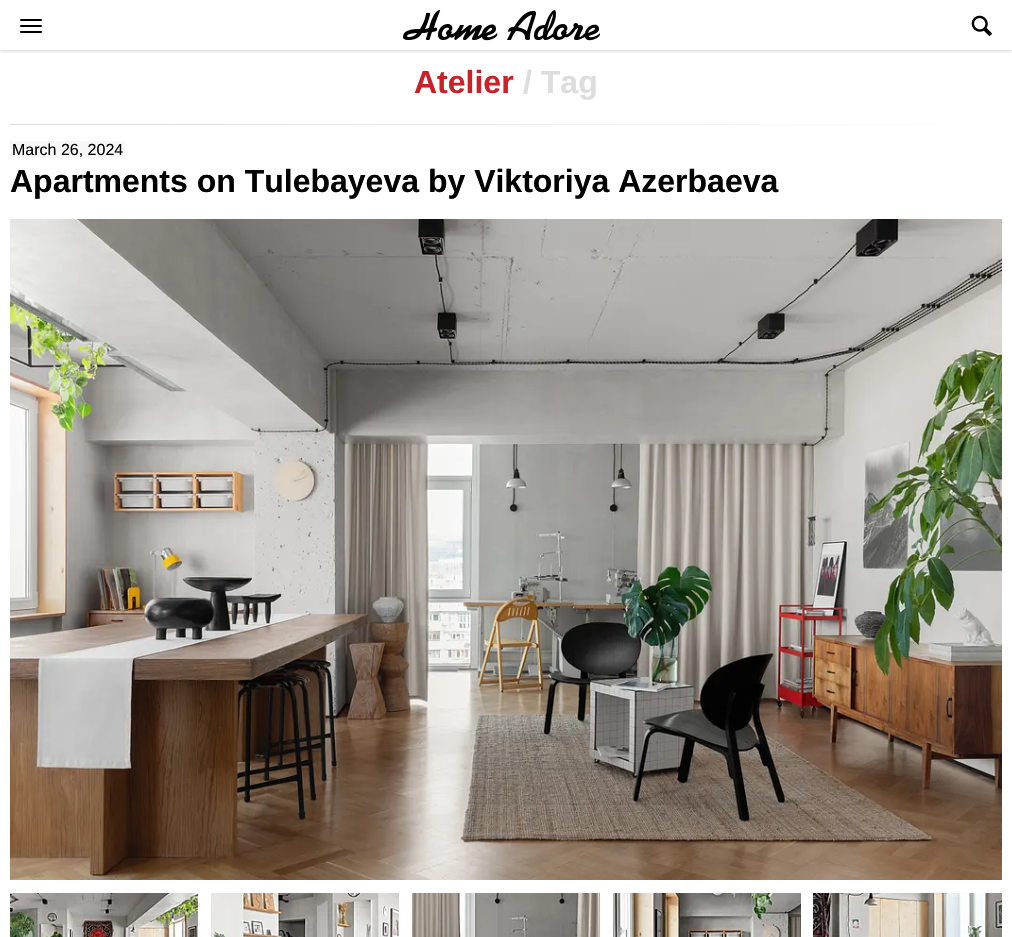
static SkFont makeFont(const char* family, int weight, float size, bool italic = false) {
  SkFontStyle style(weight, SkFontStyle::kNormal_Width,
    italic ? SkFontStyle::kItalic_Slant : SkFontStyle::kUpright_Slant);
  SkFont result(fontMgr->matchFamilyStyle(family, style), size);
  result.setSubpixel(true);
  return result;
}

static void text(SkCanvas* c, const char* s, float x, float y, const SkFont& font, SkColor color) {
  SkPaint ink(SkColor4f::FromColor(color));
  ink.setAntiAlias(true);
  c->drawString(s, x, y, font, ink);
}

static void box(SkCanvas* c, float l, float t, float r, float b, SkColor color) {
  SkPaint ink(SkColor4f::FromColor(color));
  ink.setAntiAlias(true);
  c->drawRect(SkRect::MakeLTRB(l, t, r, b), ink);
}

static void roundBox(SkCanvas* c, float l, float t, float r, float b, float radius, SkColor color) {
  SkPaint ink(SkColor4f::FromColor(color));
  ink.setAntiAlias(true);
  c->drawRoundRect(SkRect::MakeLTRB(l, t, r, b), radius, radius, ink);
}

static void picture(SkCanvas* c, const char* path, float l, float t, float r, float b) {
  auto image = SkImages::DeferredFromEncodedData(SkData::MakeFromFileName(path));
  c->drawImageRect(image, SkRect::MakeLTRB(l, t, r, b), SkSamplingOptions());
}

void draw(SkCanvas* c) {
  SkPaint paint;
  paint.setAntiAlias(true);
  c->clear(0xffffffff);
  c->save();
  c->clipRect(SkRect::MakeLTRB(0, 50, 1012, 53));
  paint.setColor(0x1a000000);
  paint.setMaskFilter(SkMaskFilter::MakeBlur(kNormal_SkBlurStyle, 1));
  c->drawRect(SkRect::MakeLTRB(0, 2, 1012, 52), paint);
  paint.setMaskFilter(nullptr);
  c->restore();
  roundBox(c, 20, 19, 42, 21, 1, 0xff000000);
  roundBox(c, 20, 25, 42, 27, 1, 0xff000000);
  roundBox(c, 20, 31, 42, 33, 1, 0xff000000);
  picture(c, "img_01.png", 403, 10, 600, 41);
  picture(c, "img_02.png", 971, 15, 992, 36);
  SkFont face1 = makeFont("Liberation Sans", 700, 32);
  text(c, "Atelier", 414, 93, face1, 0xffcb2027);
  text(c, "/ Tag", 523, 93, face1, 0xffdddddd);
  {
    const SkColor colors[] = {0xffffffff, 0xffdddddd};
    const float stops[] = {0, 1};
    const SkPoint ends[] = {{1012, 125}, {10, 124}};
    paint.setShader(SkGradientShader::MakeLinear(ends, colors, stops, 2, SkTileMode::kClamp));
    paint.setAlpha(255);
  }
  c->drawRect(SkRect::MakeLTRB(10, 124, 938, 125), paint);
  box(c, 10, 141, 125, 158, 0xfff7f7f7);
  SkFont face2 = makeFont("Liberation Sans", 400, 16);
  text(c, "March 26, 2024", 12, 155, face2, 0xff000000);
  text(c, "Apartments on Tulebayeva by Viktoriya Azerbaeva", 10, 192, face1, 0xff000000);
  picture(c, "img_03.png", 10, 219, 1002, 880);
  picture(c, "img_04.png", 10, 893, 198, 937);
  picture(c, "img_05.png", 211, 893, 399, 937);
  picture(c, "img_06.png", 412, 893, 600, 937);
  picture(c, "img_07.png", 613, 893, 801, 937);
  picture(c, "img_08.png", 813, 893, 1002, 937);
}
